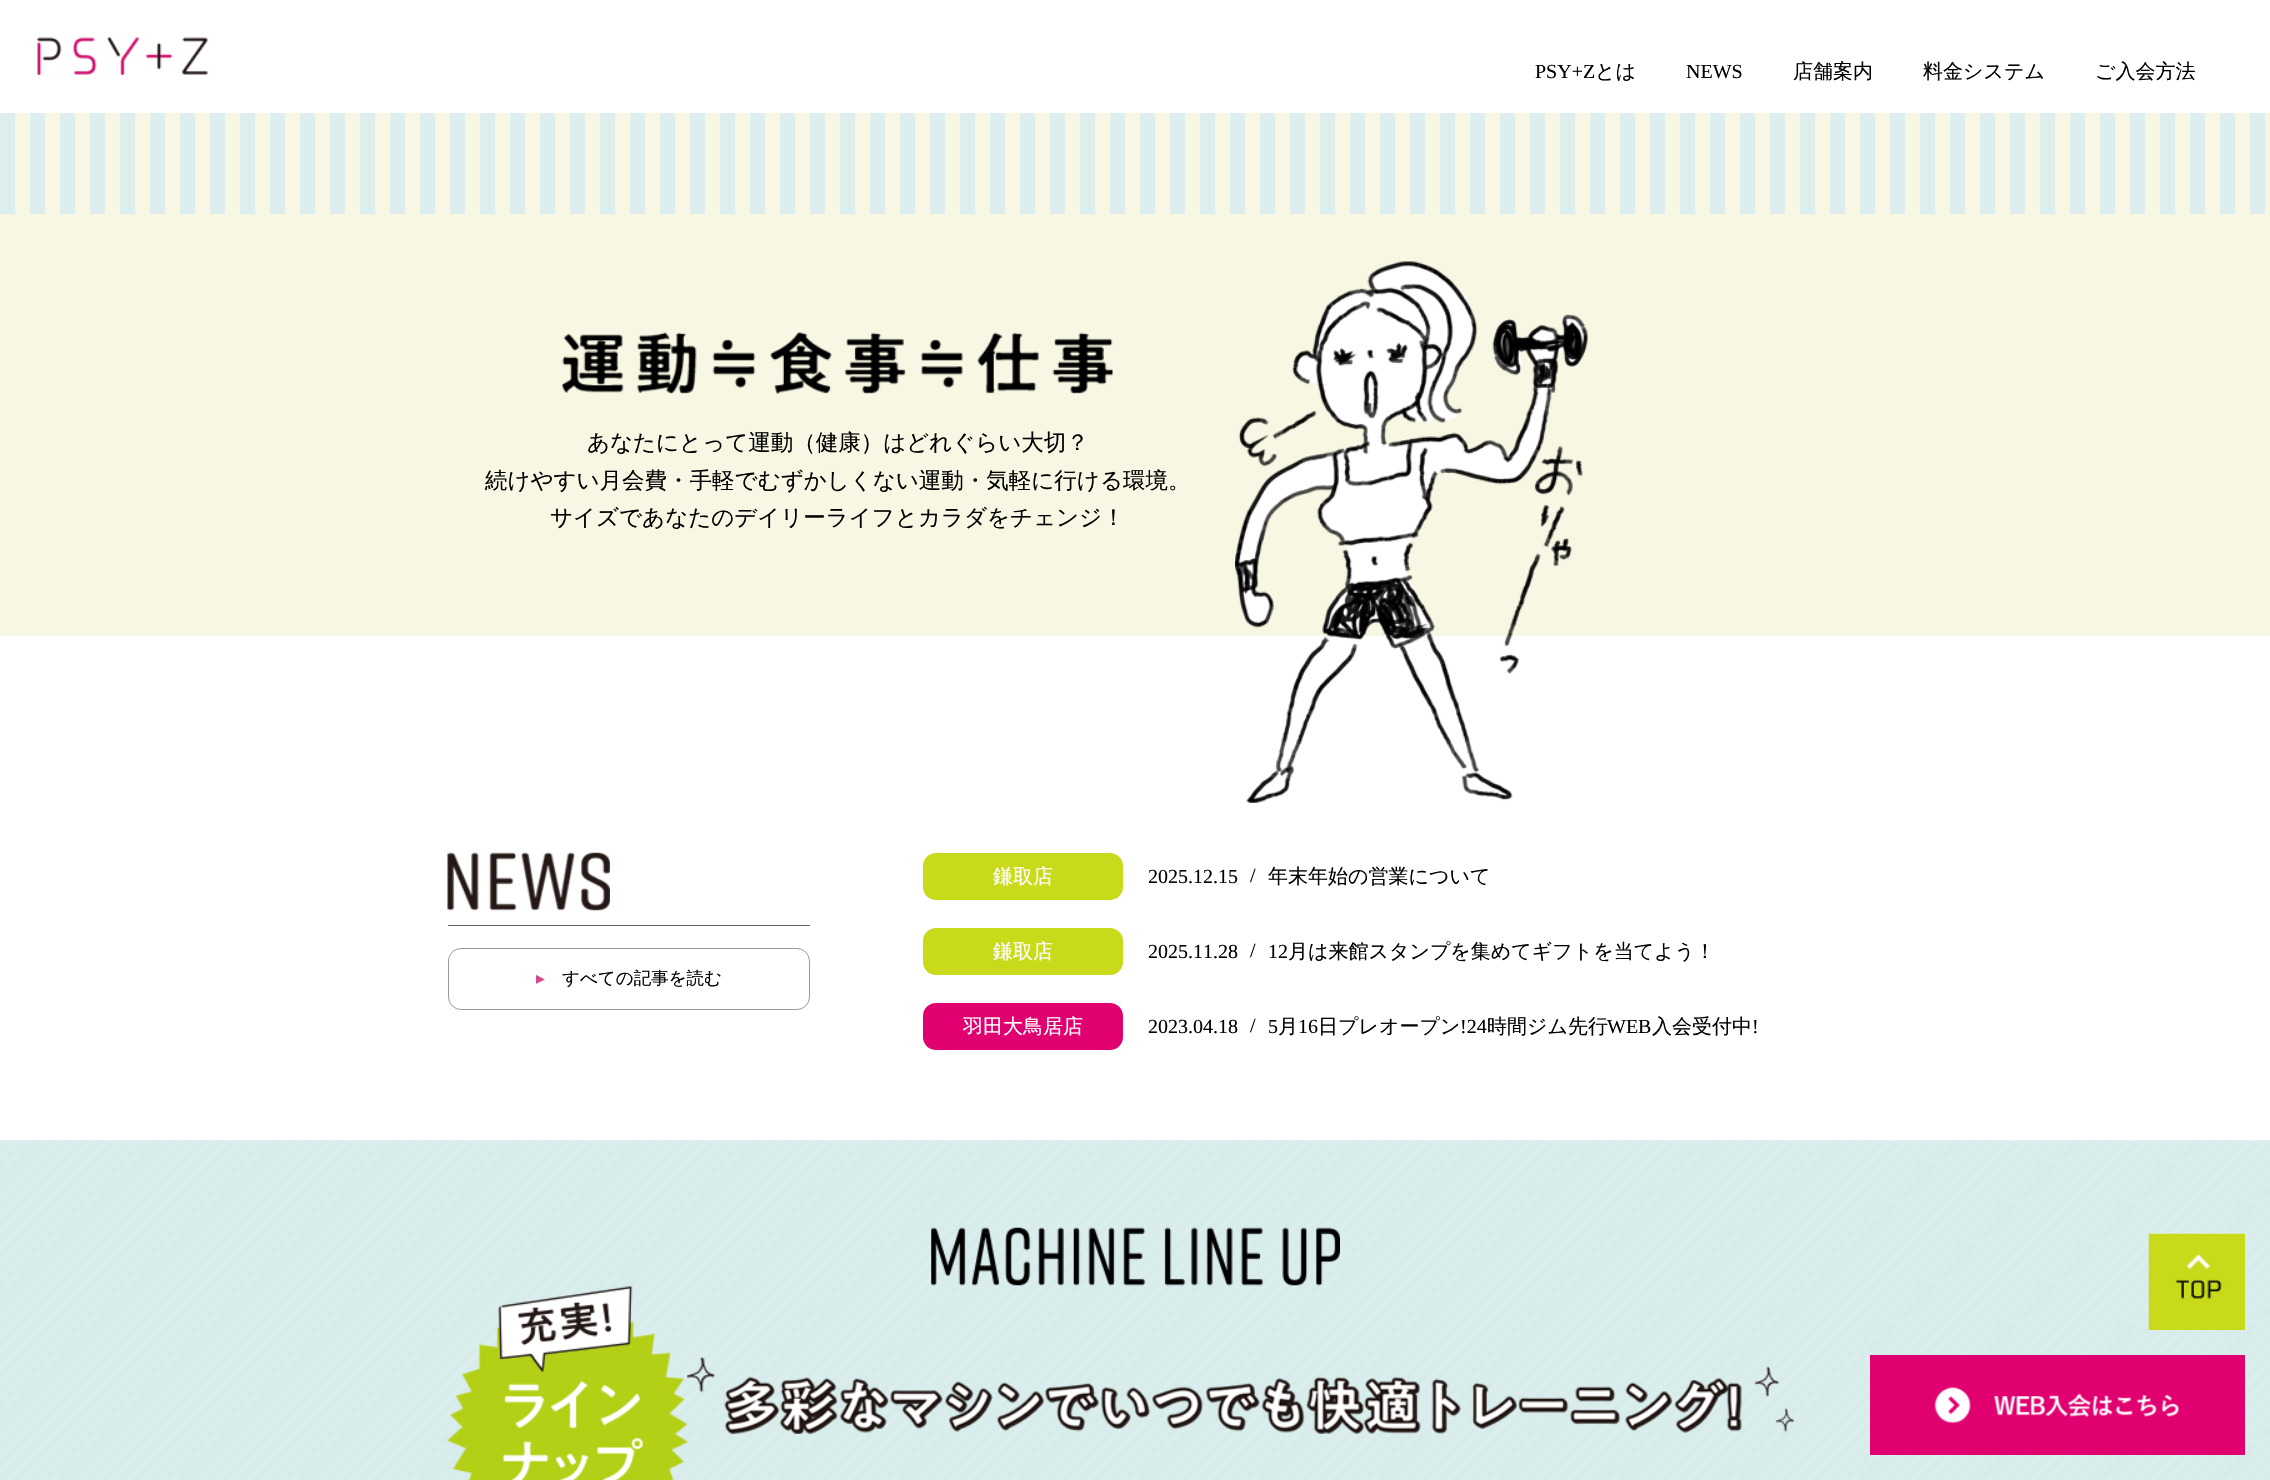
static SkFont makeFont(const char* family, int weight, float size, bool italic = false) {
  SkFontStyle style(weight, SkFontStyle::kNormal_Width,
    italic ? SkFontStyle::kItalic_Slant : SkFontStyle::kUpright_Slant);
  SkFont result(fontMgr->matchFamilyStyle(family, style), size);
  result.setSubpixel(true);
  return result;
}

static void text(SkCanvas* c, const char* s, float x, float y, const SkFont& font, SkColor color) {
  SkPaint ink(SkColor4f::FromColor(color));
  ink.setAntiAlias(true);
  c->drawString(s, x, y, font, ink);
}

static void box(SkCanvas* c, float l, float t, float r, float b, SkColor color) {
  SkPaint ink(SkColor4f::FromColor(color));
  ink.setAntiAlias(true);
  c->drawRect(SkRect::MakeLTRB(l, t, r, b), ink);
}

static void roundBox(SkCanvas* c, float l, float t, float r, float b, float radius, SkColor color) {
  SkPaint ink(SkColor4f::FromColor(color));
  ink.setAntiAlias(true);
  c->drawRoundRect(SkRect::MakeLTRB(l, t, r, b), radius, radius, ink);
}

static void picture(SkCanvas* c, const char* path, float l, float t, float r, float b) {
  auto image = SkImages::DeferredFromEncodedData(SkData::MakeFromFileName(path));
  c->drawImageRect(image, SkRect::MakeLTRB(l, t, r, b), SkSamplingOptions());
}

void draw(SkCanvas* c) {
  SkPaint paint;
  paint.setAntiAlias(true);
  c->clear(0xffffffff);
  picture(c, "img_01.png", 37, 37, 208, 75);
  SkFont face1 = makeFont("Liberation Serif", 400, 20);
  text(c, "PSY+Z", 1535, 78, face1, 0xff000000);
  SkFont face2 = makeFont("WenQuanYi Zen Hei", 500, 20);
  text(c, "とは", 1595, 78, face2, 0xff000000);
  text(c, "NEWS", 1686, 78, face1, 0xff000000);
  text(c, "店舗案内", 1793, 78, face2, 0xff000000);
  text(c, "料金システム", 1923, 78, face2, 0xff000000);
  text(c, "ご入会方法", 2095, 78, face2, 0xff000000);
  picture(c, "img_02.png", 0, 113, 2270, 214);
  box(c, 0, 214, 2270, 636, 0xfff8f7e4);
  picture(c, "img_03.png", 562, 332, 1113, 394);
  SkFont face3 = makeFont("WenQuanYi Zen Hei", 500, 22.5f);
  text(c, "あなたにとって運動（健康）はどれぐらい大切？", 587, 450, face3, 0xff000000);
  text(c, "続けやすい月会費・手軽でむずかしくない運動・気軽に行ける環境。", 485, 488, face3, 0xff000000);
  text(c, "サイズであなたのデイリーライフとカラダをチェンジ！", 550, 525, face3, 0xff000000);
  picture(c, "img_04.png", 1235, 261, 1588, 803);
  box(c, 448, 925, 810, 926, 0xff666666);
  picture(c, "img_05.png", 447, 852, 610, 911);
  paint.setStyle(SkPaint::kStroke_Style);
  paint.setStrokeWidth(1);
  paint.setColor(0xff999999);
  c->drawRoundRect(SkRect::MakeLTRB(448.5f, 948.5f, 809.5f, 1009.5f), 12.5f, 12.5f, paint);
  SkFont face4 = makeFont("DejaVu Sans", 400, 17.5f);
  text(c, "▸", 536, 984, face4, 0xffd9438d);
  SkFont face5 = makeFont("WenQuanYi Zen Hei", 500, 17.5f);
  text(c, "すべての記事を読む", 562, 984, face5, 0xff000000);
  roundBox(c, 923, 853, 1123, 900, 13, 0xffc9da1a);
  text(c, "鎌取店", 993, 883, face2, 0xffffffff);
  text(c, "2025.12.15", 1148, 883, face1, 0xff000000);
  text(c, "/", 1250, 882, face1, 0xff000000);
  text(c, "年末年始の営業について", 1268, 883, face2, 0xff000000);
  roundBox(c, 923, 928, 1123, 975, 13, 0xffc9da1a);
  text(c, "鎌取店", 993, 958, face2, 0xffffffff);
  text(c, "2025.11.28", 1148, 958, face1, 0xff000000);
  text(c, "/", 1250, 957, face1, 0xff000000);
  text(c, "12", 1268, 958, face1, 0xff000000);
  text(c, "月は来館スタンプを集めてギフトを当てよう！", 1288, 958, face2, 0xff000000);
  roundBox(c, 923, 1003, 1123, 1050, 13, 0xffe1006f);
  text(c, "羽田大鳥居店", 963, 1033, face2, 0xffffffff);
  text(c, "2023.04.18", 1148, 1033, face1, 0xff000000);
  text(c, "/", 1250, 1032, face1, 0xff000000);
  text(c, "5", 1268, 1033, face1, 0xff000000);
  text(c, "月", 1278, 1033, face2, 0xff000000);
  text(c, "16", 1298, 1033, face1, 0xff000000);
  text(c, "日プレオープン", 1318, 1033, face2, 0xff000000);
  text(c, "!24", 1460, 1033, face1, 0xff000000);
  text(c, "時間ジム先行", 1487, 1033, face2, 0xff000000);
  text(c, "WEB", 1607, 1033, face1, 0xff000000);
  text(c, "入会受付中", 1652, 1033, face2, 0xff000000);
  text(c, "!", 1752, 1033, face1, 0xff000000);
  picture(c, "img_06.png", 0, 1140, 2270, 1480);
  picture(c, "img_07.png", 931, 1227, 1340, 1286);
  picture(c, "img_08.png", 447, 1286, 1794, 1480);
  picture(c, "img_09.png", 2148, 1233, 2245, 1330);
  box(c, 1870, 1355, 2245, 1455, 0xffe1006f);
  picture(c, "img_10.png", 1934, 1387, 2180, 1424);
}
